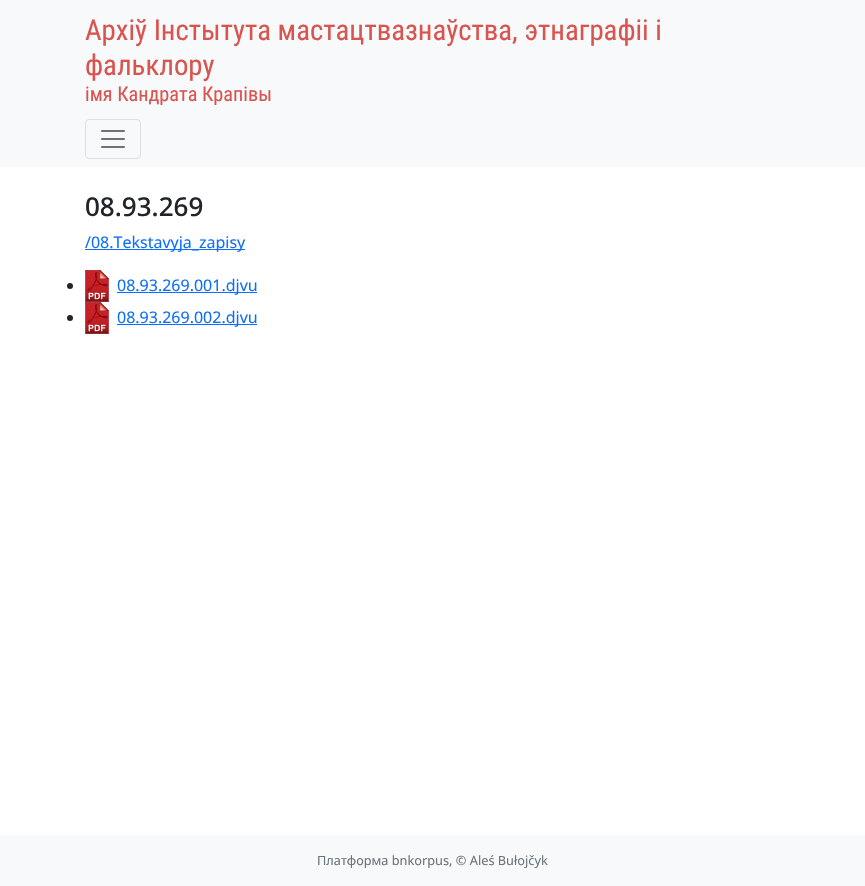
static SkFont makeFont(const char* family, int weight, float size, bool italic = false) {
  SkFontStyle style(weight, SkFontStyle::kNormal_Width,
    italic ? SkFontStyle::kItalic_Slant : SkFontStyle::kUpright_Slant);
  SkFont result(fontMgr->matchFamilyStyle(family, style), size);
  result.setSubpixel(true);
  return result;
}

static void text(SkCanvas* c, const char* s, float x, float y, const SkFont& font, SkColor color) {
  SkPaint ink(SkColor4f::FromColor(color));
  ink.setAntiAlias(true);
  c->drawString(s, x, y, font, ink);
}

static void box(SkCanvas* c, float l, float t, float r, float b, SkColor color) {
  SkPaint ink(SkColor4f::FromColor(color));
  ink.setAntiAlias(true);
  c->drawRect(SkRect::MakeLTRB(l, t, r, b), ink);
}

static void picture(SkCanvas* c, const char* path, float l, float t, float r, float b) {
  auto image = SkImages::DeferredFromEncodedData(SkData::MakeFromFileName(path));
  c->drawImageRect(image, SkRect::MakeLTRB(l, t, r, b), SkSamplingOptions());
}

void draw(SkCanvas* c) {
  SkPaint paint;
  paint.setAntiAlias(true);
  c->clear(0xffffffff);
  box(c, 0, 0, 865, 167, 0xfff8f9fa);
  SkFont face1 = makeFont("Roboto Condensed", 400, 28.8f);
  text(c, "Архіў Інстытута мастацтвазнаўства, этнаграфіі і", 85, 40, face1, 0xffd9534f);
  text(c, "фальклору", 85, 75, face1, 0xffd9534f);
  SkFont face2 = makeFont("Roboto Condensed", 400, 20.25f);
  text(c, "імя Кандрата Крапівы", 85, 101, face2, 0xffd9534f);
  paint.setStyle(SkPaint::kStroke_Style);
  paint.setStrokeWidth(1);
  paint.setColor(0xffdfe0e1);
  c->drawRoundRect(SkRect::MakeLTRB(85.5f, 119.5f, 140.5f, 158.5f), 3.5f, 3.5f, paint);
  picture(c, "img_01.png", 101, 130, 125, 148);
  SkFont face3 = makeFont("Noto Sans", 500, 26);
  text(c, "08.93.269", 85, 216, face3, 0xff212529);
  box(c, 85, 249, 245, 250, 0xff0d6efd);
  SkFont face4 = makeFont("Noto Sans", 400, 16);
  text(c, "/08.Tekstavyja_zapisy", 85, 248, face4, 0xff0d6efd);
  paint.setStyle(SkPaint::kFill_Style);
  paint.setColor(0xff212529);
  c->drawCircle(70, 286, 3, paint);
  picture(c, "img_02.png", 85, 270, 109, 302);
  box(c, 117, 292, 257, 293, 0xff0d6efd);
  text(c, "08.93.269.001.djvu", 117, 291, face4, 0xff0d6efd);
  c->drawCircle(70, 318, 3, paint);
  picture(c, "img_02.png", 85, 302, 109, 334);
  box(c, 117, 324, 257, 325, 0xff0d6efd);
  text(c, "08.93.269.002.djvu", 117, 323, face4, 0xff0d6efd);
  box(c, 0, 835, 865, 886, 0xfff8f9fa);
  SkFont face5 = makeFont("Noto Sans", 400, 12.75f);
  text(c, "Платформа bnkorpus, © Aleś Bułojčyk", 317, 865, face5, 0xff6c757d);
}
